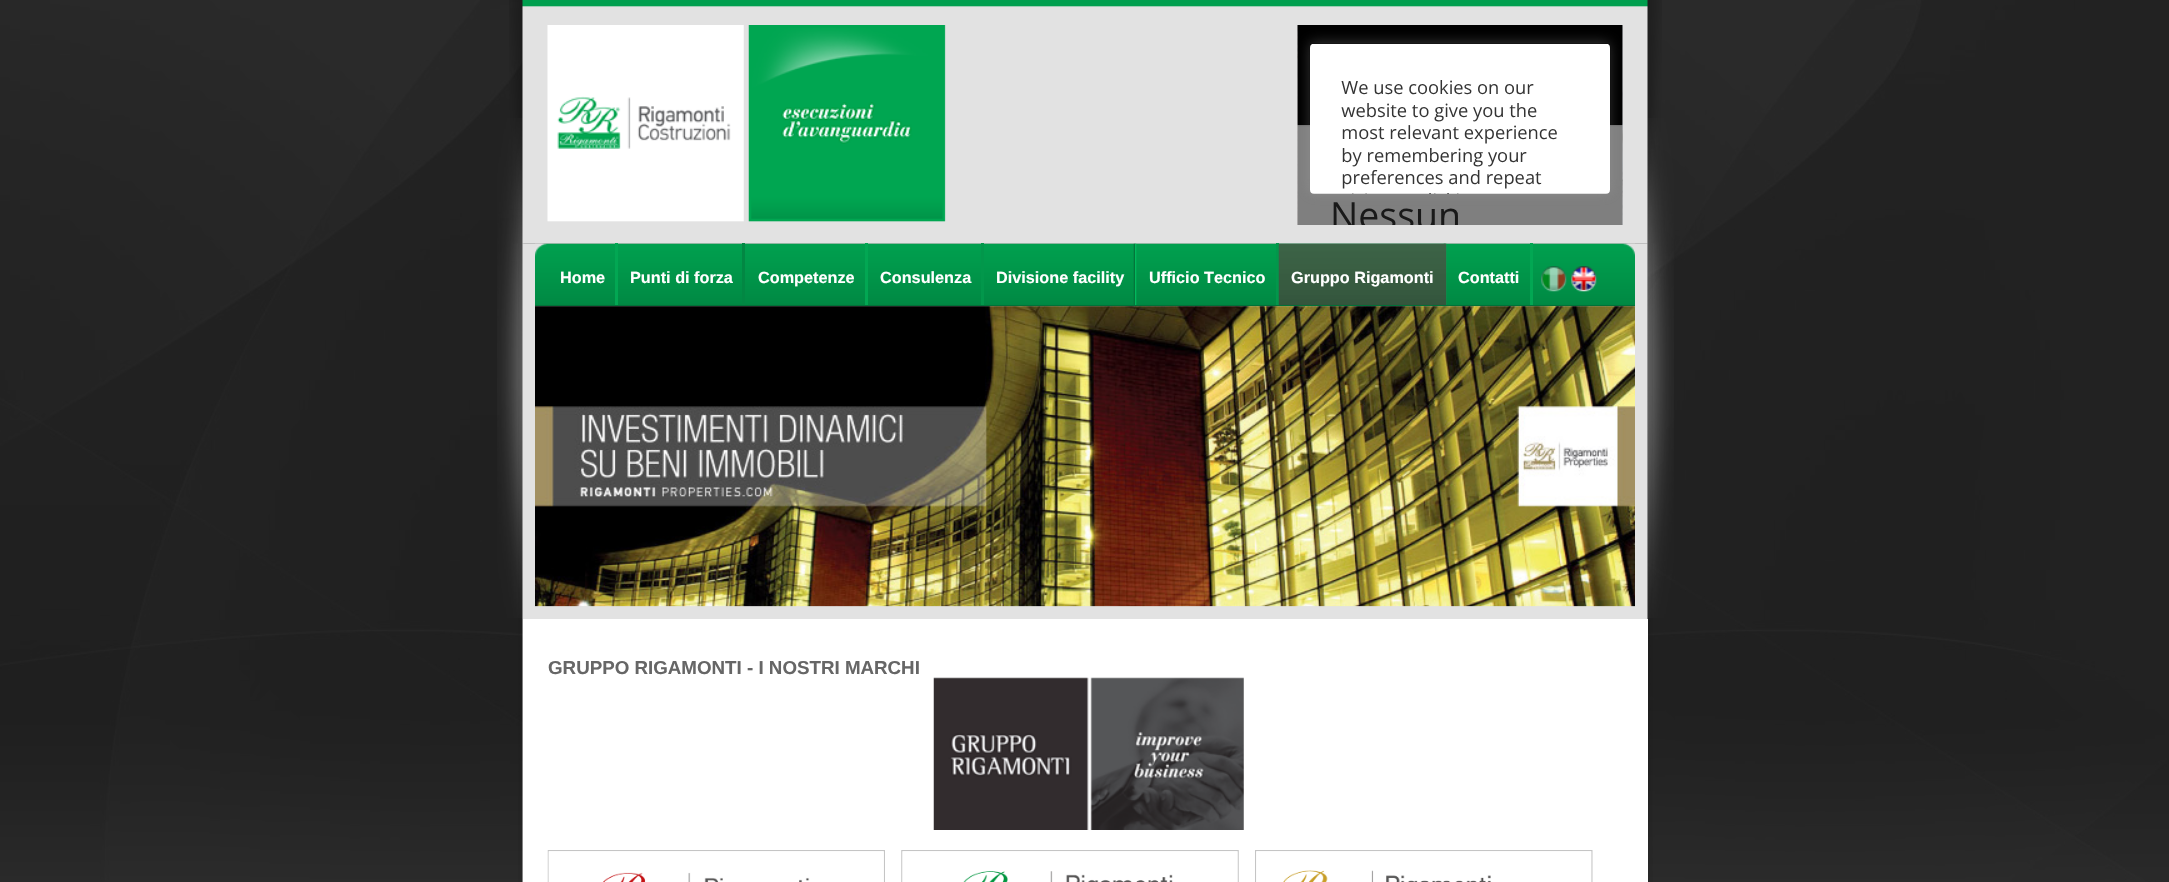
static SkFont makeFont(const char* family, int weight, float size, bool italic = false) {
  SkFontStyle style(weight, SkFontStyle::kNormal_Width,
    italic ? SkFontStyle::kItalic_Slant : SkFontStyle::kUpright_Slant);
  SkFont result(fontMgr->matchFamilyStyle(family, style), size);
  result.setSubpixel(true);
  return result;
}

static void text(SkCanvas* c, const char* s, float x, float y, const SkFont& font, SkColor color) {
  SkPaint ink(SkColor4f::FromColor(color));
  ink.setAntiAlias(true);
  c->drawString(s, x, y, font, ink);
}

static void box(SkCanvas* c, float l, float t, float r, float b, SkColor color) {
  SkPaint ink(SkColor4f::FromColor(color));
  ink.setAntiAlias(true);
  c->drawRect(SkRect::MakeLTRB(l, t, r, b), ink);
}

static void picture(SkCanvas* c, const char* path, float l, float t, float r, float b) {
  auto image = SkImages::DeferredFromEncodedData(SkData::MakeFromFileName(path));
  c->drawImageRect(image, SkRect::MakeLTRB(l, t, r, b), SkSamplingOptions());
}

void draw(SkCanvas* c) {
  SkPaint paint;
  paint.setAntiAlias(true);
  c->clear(0xffffffff);
  picture(c, "img_01.png", 0, 0, 2169, 882);
  picture(c, "img_02.png", 497, 118, 1674, 618);
  picture(c, "img_03.png", 509, 0, 1662, 244);
  picture(c, "img_04.png", 547, 25, 946, 222);
  picture(c, "img_05.png", 1297, 25, 1623, 225);
  picture(c, "img_06.png", 518, 243, 1653, 882);
  picture(c, "img_07.png", 535, 243, 1635, 307);
  box(c, 615, 243, 618, 305, 0xff02a753);
  SkFont face1 = makeFont("Liberation Sans", 700, 16.25f);
  text(c, "Home", 560, 283, face1, 0xffffffff);
  box(c, 742, 243, 745, 305, 0xff028743);
  text(c, "Punti di forza", 630, 283, face1, 0xffffffff);
  box(c, 865, 243, 868, 305, 0xff02a753);
  text(c, "Competenze", 758, 283, face1, 0xffffffff);
  box(c, 981, 243, 984, 305, 0xff02974b);
  text(c, "Consulenza", 880, 283, face1, 0xffffffff);
  picture(c, "img_08.png", 1133, 243, 1137, 305);
  text(c, "Divisione facility", 996, 283, face1, 0xffffffff);
  box(c, 1276, 243, 1279, 305, 0xff02974b);
  text(c, "Ufficio Tecnico", 1149, 283, face1, 0xffffffff);
  picture(c, "img_09.png", 1443, 243, 1447, 305);
  picture(c, "img_10.png", 1278, 243, 1447, 305);
  text(c, "Gruppo Rigamonti", 1291, 283, face1, 0xffffffff);
  box(c, 1530, 243, 1533, 305, 0xff02a753);
  text(c, "Contatti", 1458, 283, face1, 0xffffffff);
  picture(c, "img_11.png", 1541, 266, 1567, 292);
  picture(c, "img_12.png", 1571, 266, 1597, 292);
  picture(c, "img_13.png", 535, 306, 1635, 607);
  picture(c, "img_14.png", 535, 306, 1635, 607);
  box(c, 523, 619, 1648, 882, 0xffffffff);
  SkFont face2 = makeFont("Liberation Sans", 700, 18.75f);
  text(c, "GRUPPO RIGAMONTI - I NOSTRI MARCHI", 548, 674, face2, 0xff666666);
  picture(c, "img_15.png", 547, 677, 1593, 882);
}
